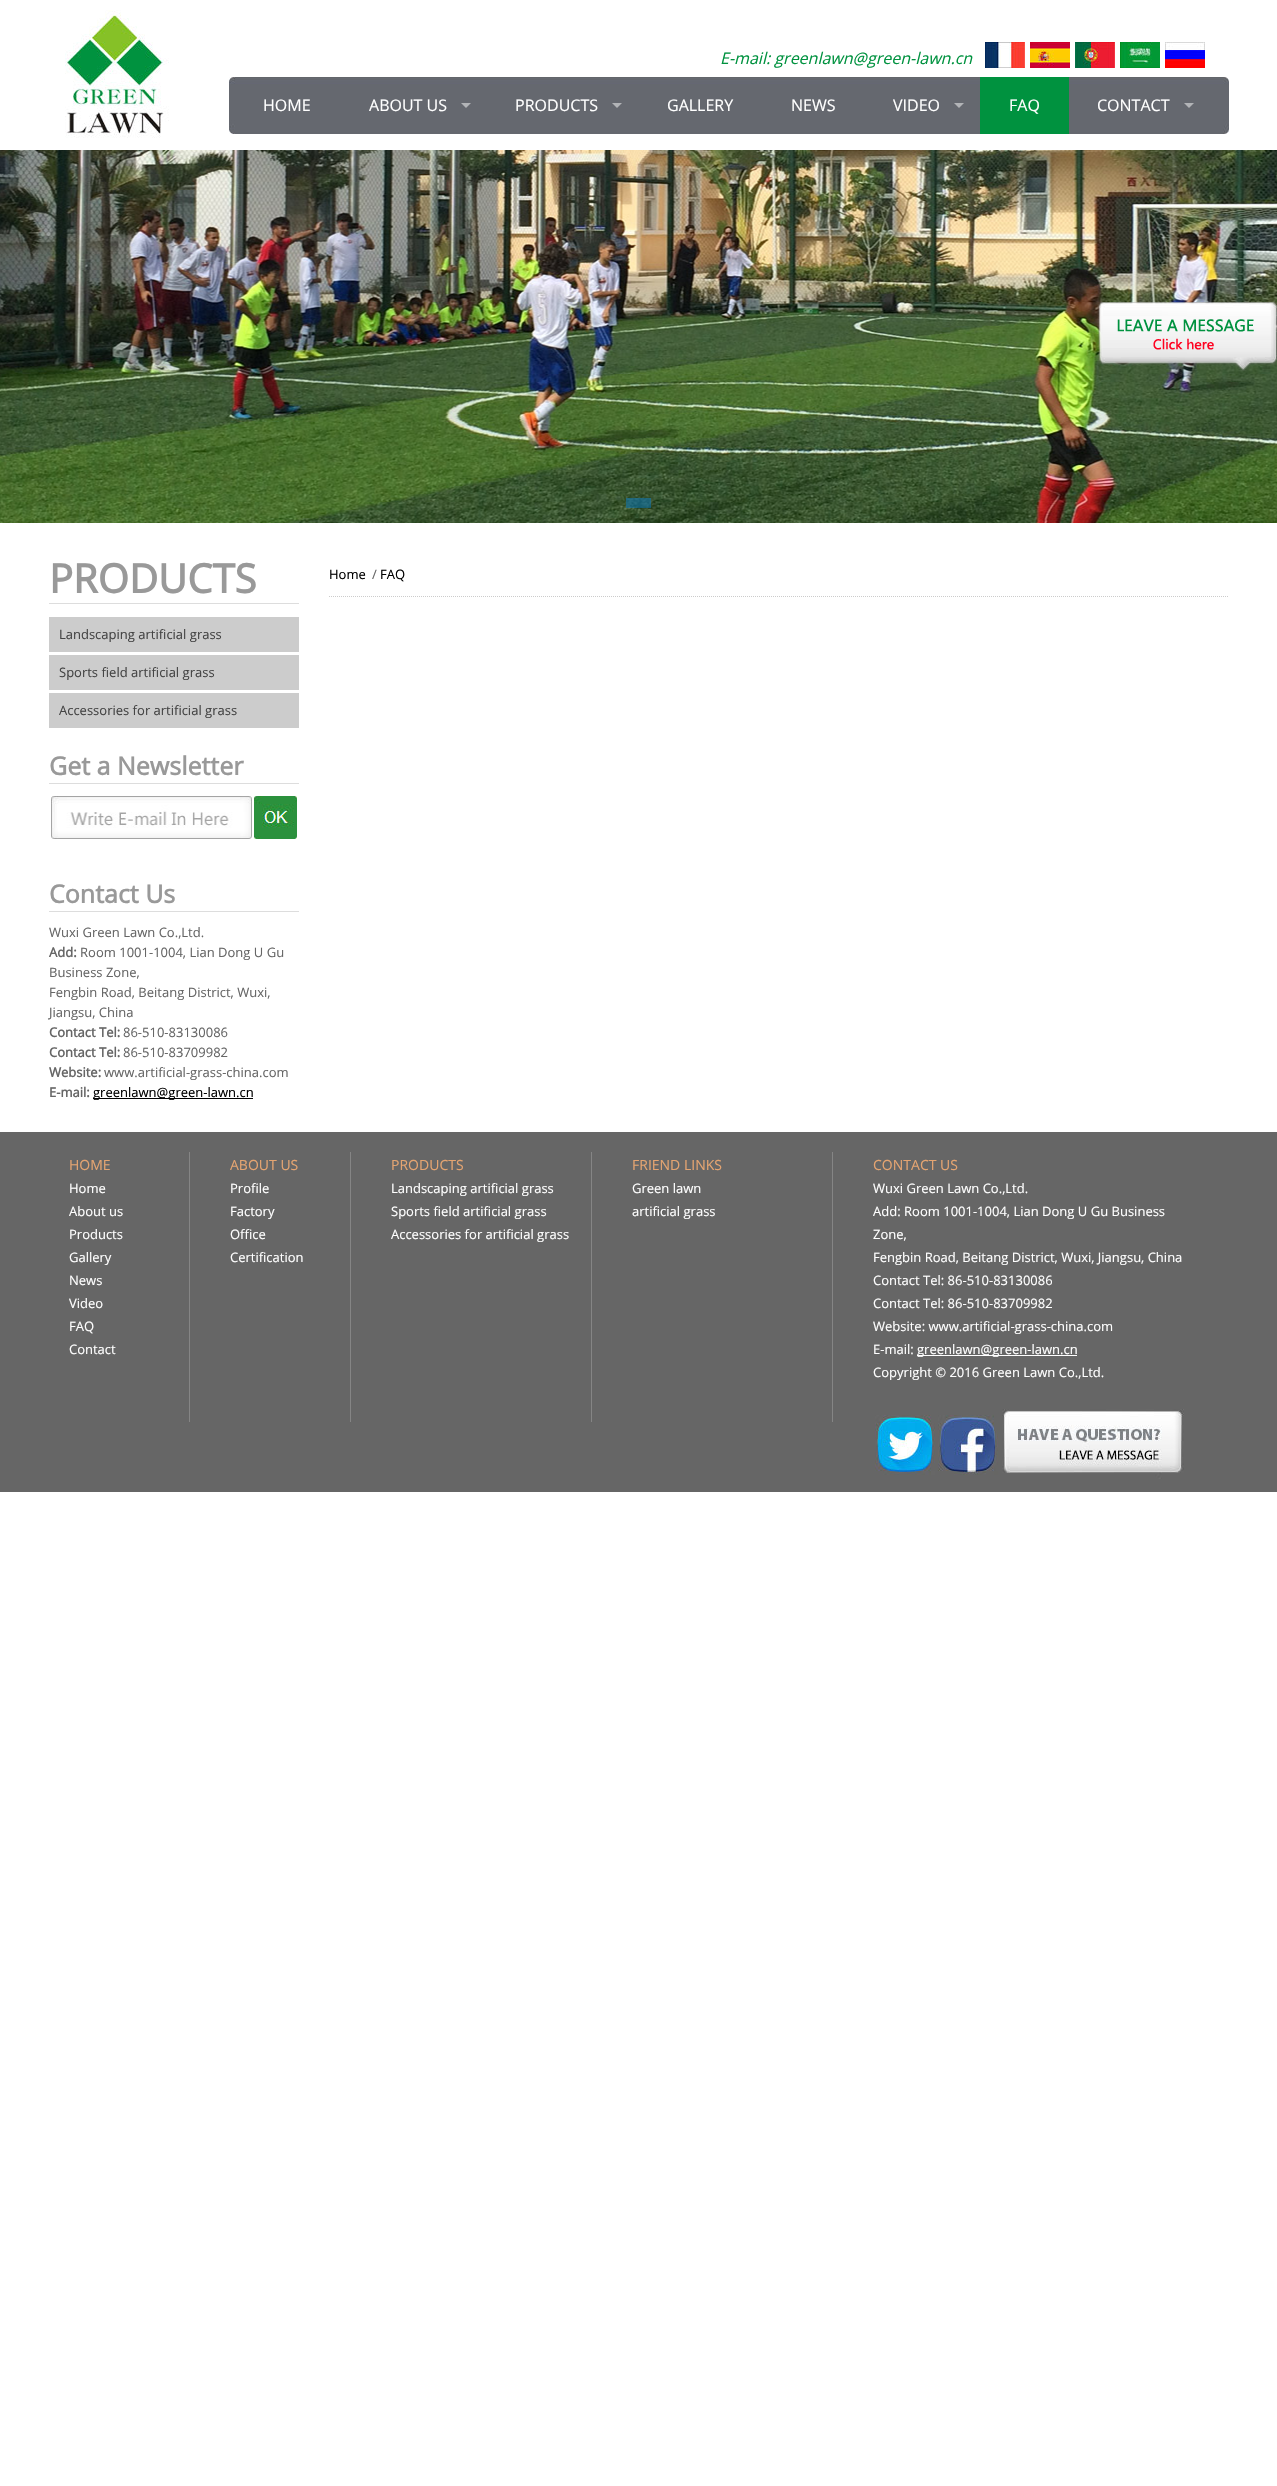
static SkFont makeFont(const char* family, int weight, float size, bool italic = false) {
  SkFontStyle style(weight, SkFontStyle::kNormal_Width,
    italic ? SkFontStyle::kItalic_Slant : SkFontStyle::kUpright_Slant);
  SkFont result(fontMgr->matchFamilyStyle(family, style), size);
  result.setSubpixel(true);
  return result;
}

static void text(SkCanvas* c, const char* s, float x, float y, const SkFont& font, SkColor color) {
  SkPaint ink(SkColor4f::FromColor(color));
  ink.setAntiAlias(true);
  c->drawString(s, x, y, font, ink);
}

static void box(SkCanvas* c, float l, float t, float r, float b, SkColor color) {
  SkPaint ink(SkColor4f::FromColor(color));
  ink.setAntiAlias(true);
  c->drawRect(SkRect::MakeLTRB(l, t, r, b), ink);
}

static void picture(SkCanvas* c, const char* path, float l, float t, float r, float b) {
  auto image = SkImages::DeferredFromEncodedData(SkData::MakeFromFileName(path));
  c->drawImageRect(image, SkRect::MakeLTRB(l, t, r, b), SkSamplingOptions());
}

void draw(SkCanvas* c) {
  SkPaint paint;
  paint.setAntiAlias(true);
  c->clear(0xffffffff);
  picture(c, "img_01.png", 65, 10, 169, 138);
  SkFont face1 = makeFont("Open Sans", 400, 16, true);
  text(c, "E-mail: greenlawn@green-lawn.cn", 720, 64, face1, 0xff00923f);
  picture(c, "img_02.png", 985, 42, 1025, 68);
  picture(c, "img_03.png", 1030, 42, 1070, 68);
  picture(c, "img_04.png", 1075, 42, 1115, 68);
  picture(c, "img_05.png", 1120, 42, 1160, 68);
  picture(c, "img_06.png", 1165, 42, 1205, 68);
  picture(c, "img_07.png", 235, 77, 1223, 134);
  picture(c, "img_08.png", 229, 77, 235, 134);
  SkFont face2 = makeFont("Open Sans", 400, 16);
  text(c, "HOME", 263, 111, face2, 0xffffffff);
  text(c, "ABOUT US", 369, 111, face2, 0xffffffff);
  paint.setColor(0xffb2b4b7);
  c->drawPath(SkPathBuilder().moveTo(461, 103).lineTo(471, 103).lineTo(466, 108).close().detach(), paint);
  text(c, "PRODUCTS", 515, 111, face2, 0xffffffff);
  c->drawPath(SkPathBuilder().moveTo(612, 103).lineTo(622, 103).lineTo(617, 108).close().detach(), paint);
  text(c, "GALLERY", 667, 111, face2, 0xffffffff);
  text(c, "NEWS", 791, 111, face2, 0xffffffff);
  text(c, "VIDEO", 893, 111, face2, 0xffffffff);
  c->drawPath(SkPathBuilder().moveTo(954, 103).lineTo(964, 103).lineTo(959, 108).close().detach(), paint);
  box(c, 980, 77, 1069, 134, 0xff00923f);
  text(c, "FAQ", 1009, 111, face2, 0xffffffff);
  text(c, "CONTACT", 1097, 111, face2, 0xffffffff);
  c->drawPath(SkPathBuilder().moveTo(1184, 103).lineTo(1194, 103).lineTo(1189, 108).close().detach(), paint);
  picture(c, "img_09.png", 1223, 77, 1229, 134);
  picture(c, "img_10.png", 0, 150, 1277, 523);
  box(c, 626, 498, 651, 508, 0x80087ac3);
  picture(c, "img_11.png", 1097, 302, 1277, 371);
  box(c, 49, 603, 299, 604, 0xffdddddd);
  SkFont face3 = makeFont("Open Sans", 700, 40);
  text(c, "PRODUCTS", 49, 593, face3, 0xff999999);
  box(c, 49, 617, 299, 652, 0xffcccccc);
  SkFont face4 = makeFont("Open Sans", 400, 13);
  text(c, "Landscaping artificial grass", 59, 639, face4, 0xff444444);
  box(c, 49, 655, 299, 690, 0xffcccccc);
  text(c, "Sports field artificial grass", 59, 677, face4, 0xff444444);
  box(c, 49, 693, 299, 728, 0xffcccccc);
  text(c, "Accessories for artificial grass", 59, 715, face4, 0xff444444);
  box(c, 49, 783, 299, 784, 0xffdddddd);
  SkFont face5 = makeFont("Open Sans", 700, 25);
  text(c, "Get a Newsletter", 49, 775, face5, 0xff999999);
  picture(c, "img_12.png", 51, 796, 252, 839);
  picture(c, "img_13.png", 254, 796, 297, 839);
  box(c, 49, 911, 299, 912, 0xffdddddd);
  text(c, "Contact Us", 49, 903, face5, 0xff999999);
  text(c, "Wuxi Green Lawn Co.,Ltd.", 49, 937, face4, 0xff666666);
  SkFont face6 = makeFont("Open Sans", 700, 13);
  text(c, "Add:", 49, 957, face6, 0xff666666);
  text(c, "Room 1001-1004, Lian Dong U Gu", 80, 957, face4, 0xff666666);
  text(c, "Business Zone,", 49, 977, face4, 0xff666666);
  text(c, "Fengbin Road, Beitang District, Wuxi,", 49, 997, face4, 0xff666666);
  text(c, "Jiangsu, China", 49, 1017, face4, 0xff666666);
  text(c, "Contact Tel:", 49, 1037, face6, 0xff666666);
  text(c, "86-510-83130086", 123, 1037, face4, 0xff666666);
  text(c, "Contact Tel:", 49, 1057, face6, 0xff666666);
  text(c, "86-510-83709982", 123, 1057, face4, 0xff666666);
  text(c, "Website:", 49, 1077, face6, 0xff666666);
  text(c, "www.artificial-grass-china.com", 104, 1077, face4, 0xff666666);
  text(c, "E-mail:", 49, 1097, face6, 0xff666666);
  box(c, 93, 1098, 253, 1099, 0xff000000);
  text(c, "greenlawn@green-lawn.cn", 93, 1097, face4, 0xff000000);
  paint.setStyle(SkPaint::kStroke_Style);
  paint.setStrokeWidth(1);
  paint.setColor(0xffcccccc);
  paint.setPathEffect(SkDashPathEffect::Make({{1, 1}}, 0));
  c->drawPath(SkPathBuilder().moveTo(329, 596.5f).lineTo(1229, 596.5f).detach(), paint);
  paint.setPathEffect(nullptr);
  text(c, "Home", 329, 579, face4, 0xff000000);
  text(c, "/", 372, 579, face4, 0xff666666);
  text(c, "FAQ", 380, 579, face4, 0xff000000);
  box(c, 0, 1132, 1277, 1492, 0xff666666);
  box(c, 189, 1152, 190, 1422, 0xff858585);
  SkFont face7 = makeFont("Open Sans", 400, 14);
  text(c, "HOME", 69, 1170, face7, 0xffe4a471);
  text(c, "Home", 69, 1193, face4, 0xffffffff);
  text(c, "About us", 69, 1216, face4, 0xffffffff);
  text(c, "Products", 69, 1239, face4, 0xffffffff);
  text(c, "Gallery", 69, 1262, face4, 0xffffffff);
  text(c, "News", 69, 1285, face4, 0xffffffff);
  text(c, "Video", 69, 1308, face4, 0xffffffff);
  text(c, "FAQ", 69, 1331, face4, 0xffffffff);
  text(c, "Contact", 69, 1354, face4, 0xffffffff);
  box(c, 350, 1152, 351, 1422, 0xff858585);
  text(c, "ABOUT US", 230, 1170, face7, 0xffe4a471);
  text(c, "Profile", 230, 1193, face4, 0xffffffff);
  text(c, "Factory", 230, 1216, face4, 0xffffffff);
  text(c, "Office", 230, 1239, face4, 0xffffffff);
  text(c, "Certification", 230, 1262, face4, 0xffffffff);
  box(c, 591, 1152, 592, 1422, 0xff858585);
  text(c, "PRODUCTS", 391, 1170, face7, 0xffe4a471);
  text(c, "Landscaping artificial grass", 391, 1193, face4, 0xffffffff);
  text(c, "Sports field artificial grass", 391, 1216, face4, 0xffffffff);
  text(c, "Accessories for artificial grass", 391, 1239, face4, 0xffffffff);
  box(c, 832, 1152, 833, 1422, 0xff858585);
  text(c, "FRIEND LINKS", 632, 1170, face7, 0xffe4a471);
  text(c, "Green lawn", 632, 1193, face4, 0xffffffff);
  text(c, "artificial grass", 632, 1216, face4, 0xffffffff);
  text(c, "CONTACT US", 873, 1170, face7, 0xffe4a471);
  text(c, "Wuxi Green Lawn Co.,Ltd.", 873, 1193, face4, 0xffffffff);
  text(c, "Add: Room 1001-1004, Lian Dong U Gu Business", 873, 1216, face4, 0xffffffff);
  text(c, "Zone,", 873, 1239, face4, 0xffffffff);
  text(c, "Fengbin Road, Beitang District, Wuxi, Jiangsu, China", 873, 1262, face4, 0xffffffff);
  text(c, "Contact Tel: 86-510-83130086", 873, 1285, face4, 0xffffffff);
  text(c, "Contact Tel: 86-510-83709982", 873, 1308, face4, 0xffffffff);
  text(c, "Website: www.artificial-grass-china.com", 873, 1331, face4, 0xffffffff);
  text(c, "E-mail:", 873, 1354, face4, 0xffffffff);
  box(c, 917, 1355, 1077, 1356, 0xffffffff);
  text(c, "greenlawn@green-lawn.cn", 917, 1354, face4, 0xffffffff);
  text(c, "Copyright © 2016 Green Lawn Co.,Ltd.", 873, 1377, face4, 0xffffffff);
  picture(c, "img_14.png", 875, 1415, 935, 1475);
  picture(c, "img_15.png", 938, 1415, 998, 1475);
  picture(c, "img_16.png", 1002, 1409, 1184, 1479);
}
